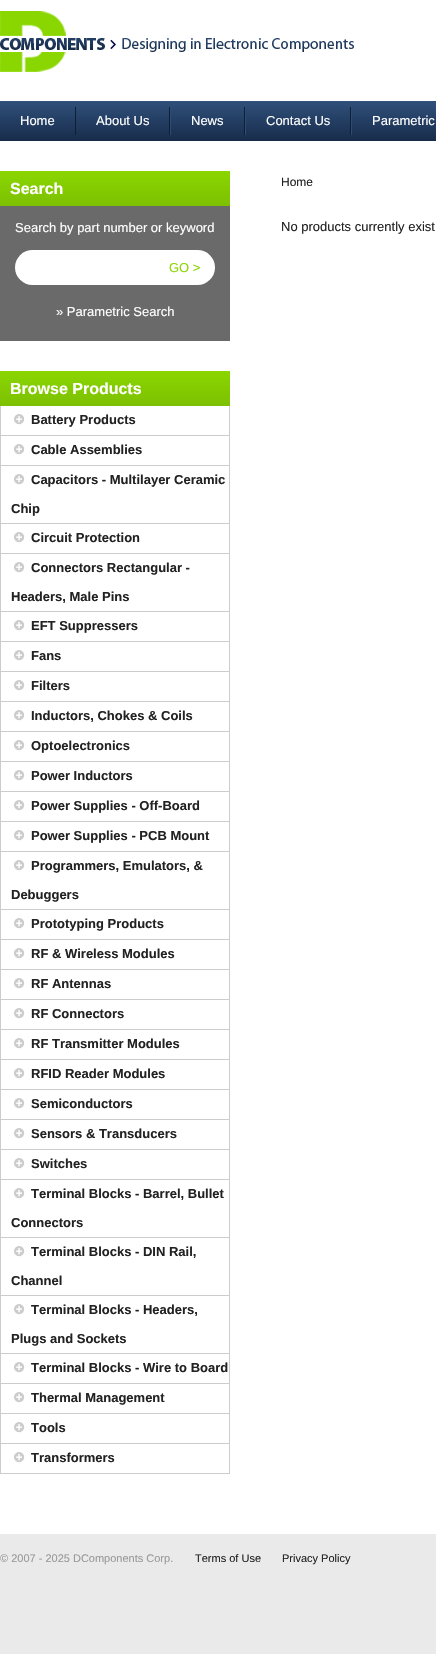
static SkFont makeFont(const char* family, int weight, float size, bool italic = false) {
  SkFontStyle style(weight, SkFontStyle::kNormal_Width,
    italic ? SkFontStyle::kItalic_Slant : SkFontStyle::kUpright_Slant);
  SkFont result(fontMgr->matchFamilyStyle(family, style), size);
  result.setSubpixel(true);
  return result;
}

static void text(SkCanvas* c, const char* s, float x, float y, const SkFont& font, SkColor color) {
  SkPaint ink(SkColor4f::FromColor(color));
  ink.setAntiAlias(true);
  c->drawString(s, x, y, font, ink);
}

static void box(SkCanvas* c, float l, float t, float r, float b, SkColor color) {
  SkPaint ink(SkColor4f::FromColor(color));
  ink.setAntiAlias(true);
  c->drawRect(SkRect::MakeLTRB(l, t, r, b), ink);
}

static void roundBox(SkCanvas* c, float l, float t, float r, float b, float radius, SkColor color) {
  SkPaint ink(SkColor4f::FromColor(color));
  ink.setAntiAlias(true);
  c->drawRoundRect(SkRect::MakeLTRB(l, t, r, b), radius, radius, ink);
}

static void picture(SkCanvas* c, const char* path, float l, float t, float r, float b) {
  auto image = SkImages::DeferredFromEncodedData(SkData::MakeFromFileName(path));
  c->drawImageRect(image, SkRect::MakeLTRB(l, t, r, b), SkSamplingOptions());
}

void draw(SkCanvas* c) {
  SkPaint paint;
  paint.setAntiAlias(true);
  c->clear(0xffffffff);
  picture(c, "img_01.png", 0, 11, 354, 72);
  {
    const SkColor colors[] = {0xff30507b, 0xff172c4a};
    const float stops[] = {0, 1};
    const SkPoint ends[] = {{218, 101}, {218, 141}};
    paint.setShader(SkGradientShader::MakeLinear(ends, colors, stops, 2, SkTileMode::kClamp));
    paint.setAlpha(255);
  }
  c->drawRect(SkRect::MakeLTRB(0, 101, 436, 141), paint);
  box(c, 75, 107, 76, 135, 0xff0e1e33);
  SkFont face1 = makeFont("Liberation Sans", 400, 13);
  text(c, "Home", 20, 125, face1, 0xffffffff);
  box(c, 169, 107, 170, 135, 0xff0e1e33);
  text(c, "About Us", 96, 125, face1, 0xffffffff);
  box(c, 244, 107, 245, 135, 0xff0e1e33);
  box(c, 170, 107, 171, 135, 0xff2d4c76);
  text(c, "News", 191, 125, face1, 0xffffffff);
  box(c, 350, 107, 351, 135, 0xff0e1e33);
  box(c, 245, 107, 246, 135, 0xff2d4c76);
  text(c, "Contact Us", 266, 125, face1, 0xffffffff);
  box(c, 351, 107, 352, 135, 0xff2d4c76);
  text(c, "Parametric", 372, 125, face1, 0xffffffff);
  box(c, 0, 206, 230, 341, 0xff6a6a6a);
  {
    const SkColor colors[] = {0xff8ad600, 0xff7dc002};
    const float stops[] = {0, 1};
    const SkPoint ends[] = {{115, 171}, {115, 206}};
    paint.setShader(SkGradientShader::MakeLinear(ends, colors, stops, 2, SkTileMode::kClamp));
    paint.setAlpha(255);
  }
  c->drawRect(SkRect::MakeLTRB(0, 171, 230, 206), paint);
  SkFont face2 = makeFont("Liberation Sans", 700, 16);
  text(c, "Search", 10, 194, face2, 0xffffffff);
  text(c, "Search by part number or keyword", 15, 232, face1, 0xffffffff);
  roundBox(c, 15, 250, 215, 285, 17.5f, 0xffffffff);
  box(c, 20, 255, 21, 280, 0xffffffff);
  text(c, "GO >", 169, 272, face1, 0xff8ad600);
  text(c, "» Parametric Search", 56, 316, face1, 0xffffffff);
  {
    const SkColor colors[] = {0xff8ad600, 0xff7dc002};
    const float stops[] = {0, 1};
    const SkPoint ends[] = {{115, 371}, {115, 406}};
    paint.setShader(SkGradientShader::MakeLinear(ends, colors, stops, 2, SkTileMode::kClamp));
    paint.setAlpha(255);
  }
  c->drawRect(SkRect::MakeLTRB(0, 371, 230, 406), paint);
  text(c, "Browse Products", 10, 394, face2, 0xffffffff);
  box(c, 229, 406, 230, 1474, 0xffcccccc);
  box(c, 0, 435, 230, 436, 0xffcccccc);
  box(c, 0, 406, 1, 436, 0xffcccccc);
  picture(c, "img_02.png", 14, 414, 25, 425);
  SkFont face3 = makeFont("Liberation Sans", 700, 13);
  text(c, "Battery Products", 31, 424, face3, 0xff222222);
  box(c, 0, 465, 230, 466, 0xffcccccc);
  box(c, 0, 436, 1, 466, 0xffcccccc);
  picture(c, "img_02.png", 14, 444, 25, 455);
  text(c, "Cable Assemblies", 31, 454, face3, 0xff222222);
  box(c, 0, 523, 230, 524, 0xffcccccc);
  box(c, 0, 466, 1, 524, 0xffcccccc);
  picture(c, "img_02.png", 14, 474, 25, 485);
  text(c, "Capacitors - Multilayer Ceramic", 31, 484, face3, 0xff222222);
  text(c, "Chip", 11, 513, face3, 0xff222222);
  box(c, 0, 553, 230, 554, 0xffcccccc);
  box(c, 0, 524, 1, 554, 0xffcccccc);
  picture(c, "img_02.png", 14, 532, 25, 543);
  text(c, "Circuit Protection", 31, 542, face3, 0xff222222);
  box(c, 0, 611, 230, 612, 0xffcccccc);
  box(c, 0, 554, 1, 612, 0xffcccccc);
  picture(c, "img_02.png", 14, 562, 25, 573);
  text(c, "Connectors Rectangular -", 31, 572, face3, 0xff222222);
  text(c, "Headers, Male Pins", 11, 601, face3, 0xff222222);
  box(c, 0, 641, 230, 642, 0xffcccccc);
  box(c, 0, 612, 1, 642, 0xffcccccc);
  picture(c, "img_02.png", 14, 620, 25, 631);
  text(c, "EFT Suppressers", 31, 630, face3, 0xff222222);
  box(c, 0, 671, 230, 672, 0xffcccccc);
  box(c, 0, 642, 1, 672, 0xffcccccc);
  picture(c, "img_02.png", 14, 650, 25, 661);
  text(c, "Fans", 31, 660, face3, 0xff222222);
  box(c, 0, 701, 230, 702, 0xffcccccc);
  box(c, 0, 672, 1, 702, 0xffcccccc);
  picture(c, "img_02.png", 14, 680, 25, 691);
  text(c, "Filters", 31, 690, face3, 0xff222222);
  box(c, 0, 731, 230, 732, 0xffcccccc);
  box(c, 0, 702, 1, 732, 0xffcccccc);
  picture(c, "img_02.png", 14, 710, 25, 721);
  text(c, "Inductors, Chokes & Coils", 31, 720, face3, 0xff222222);
  box(c, 0, 761, 230, 762, 0xffcccccc);
  box(c, 0, 732, 1, 762, 0xffcccccc);
  picture(c, "img_02.png", 14, 740, 25, 751);
  text(c, "Optoelectronics", 31, 750, face3, 0xff222222);
  box(c, 0, 791, 230, 792, 0xffcccccc);
  box(c, 0, 762, 1, 792, 0xffcccccc);
  picture(c, "img_02.png", 14, 770, 25, 781);
  text(c, "Power Inductors", 31, 780, face3, 0xff222222);
  box(c, 0, 821, 230, 822, 0xffcccccc);
  box(c, 0, 792, 1, 822, 0xffcccccc);
  picture(c, "img_02.png", 14, 800, 25, 811);
  text(c, "Power Supplies - Off-Board", 31, 810, face3, 0xff222222);
  box(c, 0, 851, 230, 852, 0xffcccccc);
  box(c, 0, 822, 1, 852, 0xffcccccc);
  picture(c, "img_02.png", 14, 830, 25, 841);
  text(c, "Power Supplies - PCB Mount", 31, 840, face3, 0xff222222);
  box(c, 0, 909, 230, 910, 0xffcccccc);
  box(c, 0, 852, 1, 910, 0xffcccccc);
  picture(c, "img_02.png", 14, 860, 25, 871);
  text(c, "Programmers, Emulators, &", 31, 870, face3, 0xff222222);
  text(c, "Debuggers", 11, 899, face3, 0xff222222);
  box(c, 0, 939, 230, 940, 0xffcccccc);
  box(c, 0, 910, 1, 940, 0xffcccccc);
  picture(c, "img_02.png", 14, 918, 25, 929);
  text(c, "Prototyping Products", 31, 928, face3, 0xff222222);
  box(c, 0, 969, 230, 970, 0xffcccccc);
  box(c, 0, 940, 1, 970, 0xffcccccc);
  picture(c, "img_02.png", 14, 948, 25, 959);
  text(c, "RF & Wireless Modules", 31, 958, face3, 0xff222222);
  box(c, 0, 999, 230, 1000, 0xffcccccc);
  box(c, 0, 970, 1, 1000, 0xffcccccc);
  picture(c, "img_02.png", 14, 978, 25, 989);
  text(c, "RF Antennas", 31, 988, face3, 0xff222222);
  box(c, 0, 1029, 230, 1030, 0xffcccccc);
  box(c, 0, 1000, 1, 1030, 0xffcccccc);
  picture(c, "img_02.png", 14, 1008, 25, 1019);
  text(c, "RF Connectors", 31, 1018, face3, 0xff222222);
  box(c, 0, 1059, 230, 1060, 0xffcccccc);
  box(c, 0, 1030, 1, 1060, 0xffcccccc);
  picture(c, "img_02.png", 14, 1038, 25, 1049);
  text(c, "RF Transmitter Modules", 31, 1048, face3, 0xff222222);
  box(c, 0, 1089, 230, 1090, 0xffcccccc);
  box(c, 0, 1060, 1, 1090, 0xffcccccc);
  picture(c, "img_02.png", 14, 1068, 25, 1079);
  text(c, "RFID Reader Modules", 31, 1078, face3, 0xff222222);
  box(c, 0, 1119, 230, 1120, 0xffcccccc);
  box(c, 0, 1090, 1, 1120, 0xffcccccc);
  picture(c, "img_02.png", 14, 1098, 25, 1109);
  text(c, "Semiconductors", 31, 1108, face3, 0xff222222);
  box(c, 0, 1149, 230, 1150, 0xffcccccc);
  box(c, 0, 1120, 1, 1150, 0xffcccccc);
  picture(c, "img_02.png", 14, 1128, 25, 1139);
  text(c, "Sensors & Transducers", 31, 1138, face3, 0xff222222);
  box(c, 0, 1179, 230, 1180, 0xffcccccc);
  box(c, 0, 1150, 1, 1180, 0xffcccccc);
  picture(c, "img_02.png", 14, 1158, 25, 1169);
  text(c, "Switches", 31, 1168, face3, 0xff222222);
  box(c, 0, 1237, 230, 1238, 0xffcccccc);
  box(c, 0, 1180, 1, 1238, 0xffcccccc);
  picture(c, "img_02.png", 14, 1188, 25, 1199);
  text(c, "Terminal Blocks - Barrel, Bullet", 31, 1198, face3, 0xff222222);
  text(c, "Connectors", 11, 1227, face3, 0xff222222);
  box(c, 0, 1295, 230, 1296, 0xffcccccc);
  box(c, 0, 1238, 1, 1296, 0xffcccccc);
  picture(c, "img_02.png", 14, 1246, 25, 1257);
  text(c, "Terminal Blocks - DIN Rail,", 31, 1256, face3, 0xff222222);
  text(c, "Channel", 11, 1285, face3, 0xff222222);
  box(c, 0, 1353, 230, 1354, 0xffcccccc);
  box(c, 0, 1296, 1, 1354, 0xffcccccc);
  picture(c, "img_02.png", 14, 1304, 25, 1315);
  text(c, "Terminal Blocks - Headers,", 31, 1314, face3, 0xff222222);
  text(c, "Plugs and Sockets", 11, 1343, face3, 0xff222222);
  box(c, 0, 1383, 230, 1384, 0xffcccccc);
  box(c, 0, 1354, 1, 1384, 0xffcccccc);
  picture(c, "img_02.png", 14, 1362, 25, 1373);
  text(c, "Terminal Blocks - Wire to Board", 31, 1372, face3, 0xff222222);
  box(c, 0, 1413, 230, 1414, 0xffcccccc);
  box(c, 0, 1384, 1, 1414, 0xffcccccc);
  picture(c, "img_02.png", 14, 1392, 25, 1403);
  text(c, "Thermal Management", 31, 1402, face3, 0xff222222);
  box(c, 0, 1443, 230, 1444, 0xffcccccc);
  box(c, 0, 1414, 1, 1444, 0xffcccccc);
  picture(c, "img_02.png", 14, 1422, 25, 1433);
  text(c, "Tools", 31, 1432, face3, 0xff222222);
  box(c, 0, 1473, 230, 1474, 0xffcccccc);
  box(c, 0, 1444, 1, 1474, 0xffcccccc);
  picture(c, "img_02.png", 14, 1452, 25, 1463);
  text(c, "Transformers", 31, 1462, face3, 0xff222222);
  SkFont face4 = makeFont("Liberation Sans", 400, 12);
  text(c, "Home", 281, 186, face4, 0xff222222);
  text(c, "No products currently exist", 281, 231, face1, 0xff222222);
  box(c, 0, 1534, 436, 1654, 0xffeaeaea);
  SkFont face5 = makeFont("Liberation Sans", 400, 11);
  text(c, "© 2007 - 2025 DComponents Corp.", 0, 1562, face5, 0xff999999);
  text(c, "Terms of Use", 195, 1562, face5, 0xff222222);
  text(c, "Privacy Policy", 282, 1562, face5, 0xff222222);
}
